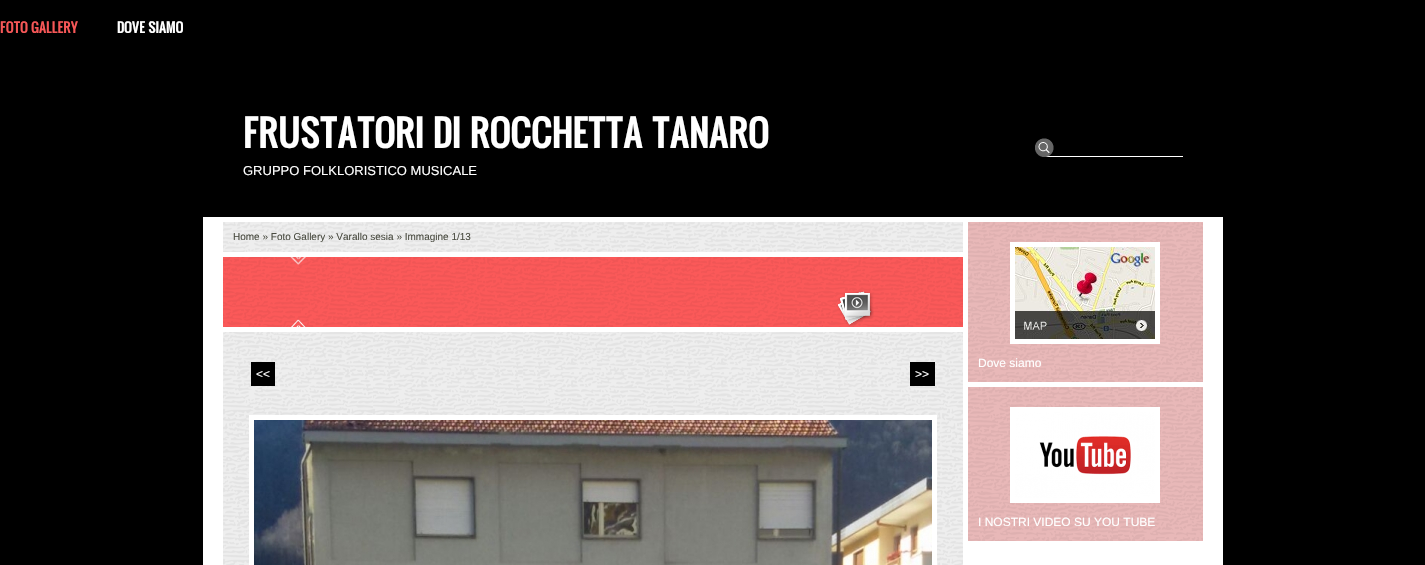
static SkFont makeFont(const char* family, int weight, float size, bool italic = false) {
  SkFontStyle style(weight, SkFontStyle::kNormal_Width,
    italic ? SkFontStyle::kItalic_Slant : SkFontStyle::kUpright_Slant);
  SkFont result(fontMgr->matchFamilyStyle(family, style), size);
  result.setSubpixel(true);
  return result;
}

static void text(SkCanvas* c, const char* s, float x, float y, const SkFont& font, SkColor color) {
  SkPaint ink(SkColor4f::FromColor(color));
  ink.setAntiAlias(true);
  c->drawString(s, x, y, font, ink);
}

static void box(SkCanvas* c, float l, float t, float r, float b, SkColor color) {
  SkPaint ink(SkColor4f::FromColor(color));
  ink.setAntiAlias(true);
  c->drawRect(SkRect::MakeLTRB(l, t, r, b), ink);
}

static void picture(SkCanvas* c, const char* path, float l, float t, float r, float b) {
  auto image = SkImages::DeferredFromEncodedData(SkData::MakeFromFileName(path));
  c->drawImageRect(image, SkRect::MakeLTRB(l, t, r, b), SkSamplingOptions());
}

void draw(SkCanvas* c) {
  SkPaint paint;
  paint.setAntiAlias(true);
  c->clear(0xff000000);
  SkFont face1 = makeFont("Oswald", 700, 13);
  text(c, "FOTO GALLERY", 0, 33, face1, 0xfff65757);
  text(c, "DOVE SIAMO", 117, 33, face1, 0xffffffff);
  SkFont face2 = makeFont("Oswald", 700, 35);
  text(c, "FRUSTATORI DI ROCCHETTA TANARO", 243, 148, face2, 0xffffffff);
  SkFont face3 = makeFont("Liberation Sans", 400, 13);
  text(c, "GRUPPO FOLKLORISTICO MUSICALE", 243, 175, face3, 0xffffffff);
  box(c, 1043, 156, 1183, 157, 0xffffffff);
  picture(c, "img_01.png", 1035, 138, 1054, 157);
  box(c, 223, 217, 1203, 222, 0xffffffff);
  box(c, 1203, 217, 1223, 565, 0xffffffff);
  box(c, 203, 217, 223, 565, 0xffffffff);
  box(c, 223, 222, 963, 252, 0xffeeeeee);
  picture(c, "img_02.png", 223, 222, 963, 252);
  box(c, 223, 252, 963, 257, 0xffffffff);
  SkFont face4 = makeFont("Liberation Sans", 400, 10);
  text(c, "Home » Foto Gallery » Varallo sesia » Immagine 1/13", 233, 240, face4, 0xff4a4c41);
  box(c, 223, 257, 963, 327, 0xfffb5959);
  picture(c, "img_03.png", 223, 257, 963, 327);
  box(c, 223, 327, 963, 332, 0xffffffff);
  picture(c, "img_04.png", 837, 291, 874, 327);
  box(c, 223, 332, 963, 565, 0xffeeeeee);
  picture(c, "img_06.png", 223, 332, 963, 565);
  box(c, 251, 362, 275, 386, 0xff000000);
  SkFont face5 = makeFont("Liberation Sans", 400, 12);
  text(c, "<<", 256, 378, face5, 0xffffffff);
  box(c, 910, 362, 935, 386, 0xff000000);
  text(c, ">>", 915, 378, face5, 0xffffffff);
  paint.setStyle(SkPaint::kStroke_Style);
  paint.setStrokeWidth(5);
  paint.setColor(0xffffffff);
  c->drawRect(SkRect::MakeLTRB(251.5f, 417.5f, 934.5f, 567.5f), paint);
  picture(c, "img_05.png", 254, 420, 932, 565);
  box(c, 963, 222, 1203, 565, 0xffffffff);
  box(c, 968, 222, 1203, 382, 0xffe8b8b8);
  picture(c, "img_07.png", 968, 222, 1203, 382);
  c->drawRect(SkRect::MakeLTRB(1012.5f, 244.5f, 1157.5f, 341.5f), paint);
  picture(c, "img_08.png", 1015, 247, 1155, 339);
  text(c, "Dove siamo", 978, 367, face5, 0xffffffff);
  box(c, 968, 387, 1203, 541, 0xffe8b8b8);
  picture(c, "img_09.png", 968, 387, 1203, 541);
  c->drawRect(SkRect::MakeLTRB(1012.5f, 409.5f, 1157.5f, 500.5f), paint);
  picture(c, "img_10.png", 1015, 412, 1155, 498);
  text(c, "I NOSTRI VIDEO SU YOU TUBE", 978, 526, face5, 0xffffffff);
}
